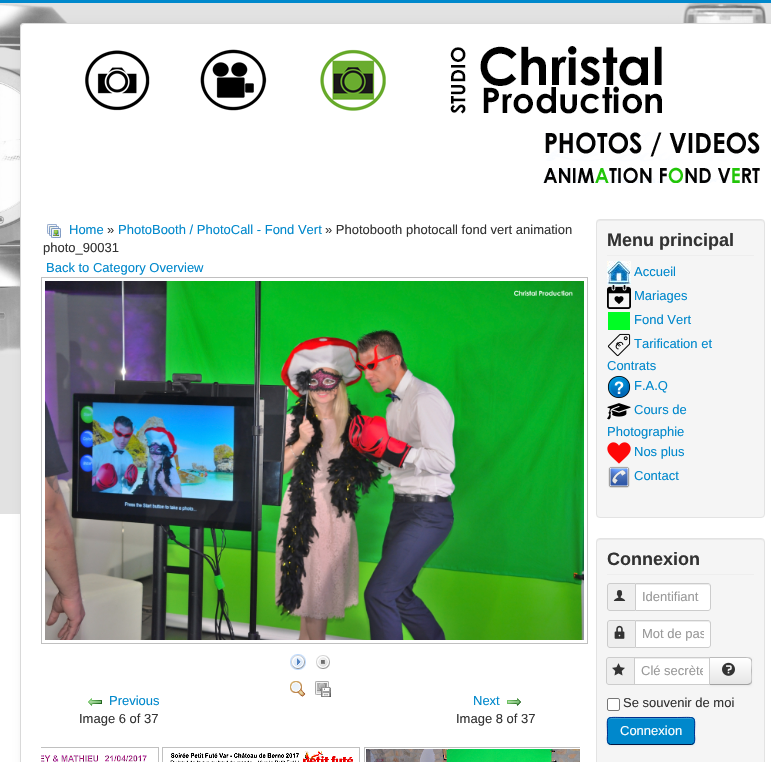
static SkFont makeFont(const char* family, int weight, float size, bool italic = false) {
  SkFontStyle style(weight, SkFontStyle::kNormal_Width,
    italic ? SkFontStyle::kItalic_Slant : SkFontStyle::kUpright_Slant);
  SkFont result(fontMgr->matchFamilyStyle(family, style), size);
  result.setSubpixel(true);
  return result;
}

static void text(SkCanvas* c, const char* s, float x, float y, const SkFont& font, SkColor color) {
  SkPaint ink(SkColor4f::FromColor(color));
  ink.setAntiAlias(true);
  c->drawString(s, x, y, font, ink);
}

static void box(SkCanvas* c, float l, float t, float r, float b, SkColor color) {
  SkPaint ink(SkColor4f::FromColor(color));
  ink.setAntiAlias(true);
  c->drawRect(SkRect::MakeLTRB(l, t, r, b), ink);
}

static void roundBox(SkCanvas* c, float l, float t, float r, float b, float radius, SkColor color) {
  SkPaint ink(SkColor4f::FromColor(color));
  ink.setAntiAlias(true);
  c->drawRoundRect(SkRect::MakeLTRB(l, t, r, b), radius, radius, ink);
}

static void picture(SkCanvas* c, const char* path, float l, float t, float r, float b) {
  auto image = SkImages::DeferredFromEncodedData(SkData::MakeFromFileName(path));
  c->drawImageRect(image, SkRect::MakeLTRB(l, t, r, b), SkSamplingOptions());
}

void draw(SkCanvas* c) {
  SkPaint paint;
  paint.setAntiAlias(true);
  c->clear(0xffffffff);
  box(c, 0, 0, 771, 3, 0xff0088cc);
  picture(c, "img_01.png", 0, 3, 771, 514);
  paint.setColor(0x0d000000);
  paint.setMaskFilter(SkMaskFilter::MakeBlur(kNormal_SkBlurStyle, 3));
  c->drawRoundRect(SkRect::MakeLTRB(20, 23, 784, 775), 4, 4, paint);
  paint.setMaskFilter(nullptr);
  roundBox(c, 20, 23, 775, 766, 4, 0xffffffff);
  paint.setStyle(SkPaint::kStroke_Style);
  paint.setStrokeWidth(1);
  paint.setColor(0x26000000);
  c->drawRoundRect(SkRect::MakeLTRB(20.5f, 23.5f, 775.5f, 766.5f), 3.5f, 3.5f, paint);
  picture(c, "img_02.png", 85, 46, 662, 114);
  picture(c, "img_03.png", 543, 132, 760, 183);
  picture(c, "img_04.png", 47, 224, 61, 238);
  SkFont face1 = makeFont("Liberation Sans", 400, 13);
  text(c, "Home", 69, 234, face1, 0xff0088cc);
  text(c, "»", 107, 234, face1, 0xff333333);
  text(c, "PhotoBooth / PhotoCall - Fond Vert", 118, 234, face1, 0xff0088cc);
  text(c, "» Photobooth photocall fond vert animation", 325, 234, face1, 0xff333333);
  text(c, "photo_90031", 43, 252, face1, 0xff333333);
  text(c, "Back to Category Overview", 46, 272, face1, 0xff0088cc);
  paint.setColor(0xffc0c0c0);
  c->drawRect(SkRect::MakeLTRB(41.5f, 277.5f, 587.5f, 643.5f), paint);
  picture(c, "img_05.png", 45, 281, 584, 640);
  picture(c, "img_06.png", 290, 654, 306, 670);
  picture(c, "img_07.png", 316, 655, 330, 669);
  picture(c, "img_08.png", 290, 681, 306, 697);
  picture(c, "img_09.png", 315, 681, 331, 697);
  picture(c, "img_10.png", 88, 698, 102, 706);
  text(c, "Previous", 109, 705, face1, 0xff0088cc);
  text(c, "Image 6 of 37", 79, 723, face1, 0xff333333);
  text(c, "Next", 473, 705, face1, 0xff0088cc);
  picture(c, "img_11.png", 507, 698, 521, 706);
  text(c, "Image 8 of 37", 456, 723, face1, 0xff333333);
  c->save();
  c->clipRect(SkRect::MakeLTRB(41, 746, 580, 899));
  c->drawRect(SkRect::MakeLTRB(-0.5f, 747.5f, 158.5f, 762.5f), paint);
  c->restore();
  picture(c, "img_12.png", 41, 755, 147, 762);
  c->drawRect(SkRect::MakeLTRB(162.5f, 747.5f, 359.5f, 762.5f), paint);
  picture(c, "img_13.png", 170, 750, 353, 762);
  c->save();
  c->clipRect(SkRect::MakeLTRB(41, 746, 580, 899));
  c->drawRect(SkRect::MakeLTRB(364.5f, 747.5f, 588.5f, 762.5f), paint);
  c->restore();
  picture(c, "img_14.png", 366, 749, 580, 762);
  roundBox(c, 596, 219, 765, 518, 4, 0xfff5f5f5);
  paint.setStyle(SkPaint::kFill_Style);
  paint.setColor(0xffe9e9e9);
  c->drawPath(SkPathBuilder().moveTo(600, 221).lineTo(761, 221).cubicTo(763, 221, 764, 222, 764, 224).lineTo(764, 223).cubicTo(764, 221, 763, 220, 761, 220).lineTo(600, 220).cubicTo(598, 220, 597, 221, 597, 223).lineTo(597, 224).cubicTo(597, 222, 598, 221, 600, 221).close().detach(), paint);
  paint.setStyle(SkPaint::kStroke_Style);
  paint.setColor(0xffe3e3e3);
  c->drawRoundRect(SkRect::MakeLTRB(596.5f, 219.5f, 764.5f, 517.5f), 3.5f, 3.5f, paint);
  box(c, 607, 255, 754, 256, 0xffeeeeee);
  SkFont face2 = makeFont("Liberation Sans", 700, 18);
  text(c, "Menu principal", 607, 246, face2, 0xff333333);
  picture(c, "img_15.png", 607, 261, 631, 285);
  text(c, "Accueil", 634, 276, face1, 0xff0088cc);
  picture(c, "img_16.png", 607, 285, 631, 309);
  text(c, "Mariages", 634, 300, face1, 0xff0088cc);
  box(c, 608, 312, 630, 330, 0xff00fd24);
  text(c, "Fond Vert", 634, 324, face1, 0xff0088cc);
  picture(c, "img_17.png", 607, 333, 631, 357);
  text(c, "Tarification et", 634, 348, face1, 0xff0088cc);
  text(c, "Contrats", 607, 370, face1, 0xff0088cc);
  picture(c, "img_18.png", 607, 375, 631, 399);
  text(c, "F.A.Q", 634, 390, face1, 0xff0088cc);
  picture(c, "img_19.png", 607, 403, 631, 420);
  text(c, "Cours de", 634, 414, face1, 0xff0088cc);
  text(c, "Photographie", 607, 436, face1, 0xff0088cc);
  picture(c, "img_20.png", 607, 442, 631, 464);
  text(c, "Nos plus", 634, 456, face1, 0xff0088cc);
  picture(c, "img_21.png", 608, 466, 630, 488);
  text(c, "Contact", 634, 480, face1, 0xff0088cc);
  roundBox(c, 596, 538, 765, 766, 4, 0xfff5f5f5);
  paint.setStyle(SkPaint::kFill_Style);
  paint.setColor(0xffe9e9e9);
  c->drawPath(SkPathBuilder().moveTo(600, 540).lineTo(761, 540).cubicTo(763, 540, 764, 541, 764, 543).lineTo(764, 542).cubicTo(764, 540, 763, 539, 761, 539).lineTo(600, 539).cubicTo(598, 539, 597, 540, 597, 542).lineTo(597, 543).cubicTo(597, 541, 598, 540, 600, 540).close().detach(), paint);
  paint.setStyle(SkPaint::kStroke_Style);
  paint.setColor(0xffe3e3e3);
  c->drawRoundRect(SkRect::MakeLTRB(596.5f, 538.5f, 764.5f, 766.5f), 3.5f, 3.5f, paint);
  box(c, 607, 574, 754, 575, 0xffeeeeee);
  text(c, "Connexion", 607, 565, face2, 0xff333333);
  paint.setStyle(SkPaint::kFill_Style);
  paint.setColor(0xffeeeeee);
  c->drawPath(SkPathBuilder().moveTo(610, 583.5f).lineTo(635.5f, 583.5f).lineTo(635.5f, 610.5f).lineTo(610, 610.5f).cubicTo(608.5f, 610.5f, 607.5f, 609.5f, 607.5f, 608).lineTo(607.5f, 586).cubicTo(607.5f, 584.5f, 608.5f, 583.5f, 610, 583.5f).close().detach(), paint);
  paint.setStyle(SkPaint::kStroke_Style);
  paint.setColor(0xffcccccc);
  c->drawPath(SkPathBuilder().moveTo(610, 583.5f).lineTo(635.5f, 583.5f).lineTo(635.5f, 610.5f).lineTo(610, 610.5f).cubicTo(608.5f, 610.5f, 607.5f, 609.5f, 607.5f, 608).lineTo(607.5f, 586).cubicTo(607.5f, 584.5f, 608.5f, 583.5f, 610, 583.5f).close().detach(), paint);
  picture(c, "img_22.png", 613, 590, 626, 601);
  paint.setStyle(SkPaint::kFill_Style);
  paint.setColor(0xffffffff);
  c->drawPath(SkPathBuilder().moveTo(635, 583).lineTo(708, 583).cubicTo(709.5f, 583, 711, 584.5f, 711, 586).lineTo(711, 608).cubicTo(711, 609.5f, 709.5f, 611, 708, 611).lineTo(635, 611).close().detach(), paint);
  paint.setColor(0xffececec);
  c->drawPath(SkPathBuilder().moveTo(636, 585).lineTo(708, 585).cubicTo(709, 585, 710, 586, 710, 587).lineTo(710, 586).cubicTo(710, 585, 709, 584, 708, 584).lineTo(636, 584).close().detach(), paint);
  paint.setStyle(SkPaint::kStroke_Style);
  paint.setColor(0xffcccccc);
  c->drawPath(SkPathBuilder().moveTo(635.5f, 583.5f).lineTo(708, 583.5f).cubicTo(709.5f, 583.5f, 710.5f, 584.5f, 710.5f, 586).lineTo(710.5f, 608).cubicTo(710.5f, 609.5f, 709.5f, 610.5f, 708, 610.5f).lineTo(635.5f, 610.5f).close().detach(), paint);
  text(c, "Identifiant", 642, 601, face1, 0xff999999);
  paint.setStyle(SkPaint::kFill_Style);
  paint.setColor(0xffeeeeee);
  c->drawPath(SkPathBuilder().moveTo(610, 620.5f).lineTo(635.5f, 620.5f).lineTo(635.5f, 647.5f).lineTo(610, 647.5f).cubicTo(608.5f, 647.5f, 607.5f, 646.5f, 607.5f, 645).lineTo(607.5f, 623).cubicTo(607.5f, 621.5f, 608.5f, 620.5f, 610, 620.5f).close().detach(), paint);
  paint.setStyle(SkPaint::kStroke_Style);
  paint.setColor(0xffcccccc);
  c->drawPath(SkPathBuilder().moveTo(610, 620.5f).lineTo(635.5f, 620.5f).lineTo(635.5f, 647.5f).lineTo(610, 647.5f).cubicTo(608.5f, 647.5f, 607.5f, 646.5f, 607.5f, 645).lineTo(607.5f, 623).cubicTo(607.5f, 621.5f, 608.5f, 620.5f, 610, 620.5f).close().detach(), paint);
  picture(c, "img_23.png", 614, 625, 625, 639);
  paint.setStyle(SkPaint::kFill_Style);
  paint.setColor(0xffffffff);
  c->drawPath(SkPathBuilder().moveTo(635, 620).lineTo(708, 620).cubicTo(709.5f, 620, 711, 621.5f, 711, 623).lineTo(711, 645).cubicTo(711, 646.5f, 709.5f, 648, 708, 648).lineTo(635, 648).close().detach(), paint);
  paint.setColor(0xffececec);
  c->drawPath(SkPathBuilder().moveTo(636, 622).lineTo(708, 622).cubicTo(709, 622, 710, 623, 710, 624).lineTo(710, 623).cubicTo(710, 622, 709, 621, 708, 621).lineTo(636, 621).close().detach(), paint);
  paint.setStyle(SkPaint::kStroke_Style);
  paint.setColor(0xffcccccc);
  c->drawPath(SkPathBuilder().moveTo(635.5f, 620.5f).lineTo(708, 620.5f).cubicTo(709.5f, 620.5f, 710.5f, 621.5f, 710.5f, 623).lineTo(710.5f, 645).cubicTo(710.5f, 646.5f, 709.5f, 647.5f, 708, 647.5f).lineTo(635.5f, 647.5f).close().detach(), paint);
  c->save();
  c->clipRect(SkRect::MakeLTRB(642, 626, 704, 641));
  text(c, "Mot de pas", 642, 638, face1, 0xff999999);
  c->restore();
  paint.setStyle(SkPaint::kFill_Style);
  paint.setColor(0xffeeeeee);
  c->drawPath(SkPathBuilder().moveTo(609, 657.5f).lineTo(634.5f, 657.5f).lineTo(634.5f, 684.5f).lineTo(609, 684.5f).cubicTo(607.5f, 684.5f, 606.5f, 683.5f, 606.5f, 682).lineTo(606.5f, 660).cubicTo(606.5f, 658.5f, 607.5f, 657.5f, 609, 657.5f).close().detach(), paint);
  paint.setStyle(SkPaint::kStroke_Style);
  paint.setColor(0xffcccccc);
  c->drawPath(SkPathBuilder().moveTo(609, 657.5f).lineTo(634.5f, 657.5f).lineTo(634.5f, 684.5f).lineTo(609, 684.5f).cubicTo(607.5f, 684.5f, 606.5f, 683.5f, 606.5f, 682).lineTo(606.5f, 660).cubicTo(606.5f, 658.5f, 607.5f, 657.5f, 609, 657.5f).close().detach(), paint);
  picture(c, "img_24.png", 612, 663, 625, 676);
  paint.setStyle(SkPaint::kFill_Style);
  paint.setColor(0x0d000000);
  paint.setMaskFilter(SkMaskFilter::MakeBlur(kNormal_SkBlurStyle, 1));
  c->drawRoundRect(SkRect::MakeLTRB(709, 658, 752, 686), 3, 3, paint);
  paint.setMaskFilter(nullptr);
  box(c, 635, 659, 709, 684, 0xffffffff);
  box(c, 635, 658, 709, 659, 0xffececec);
  paint.setColor(0xfff5f5f5);
  c->drawPath(SkPathBuilder().moveTo(709, 657).lineTo(749, 657).cubicTo(750.5f, 657, 752, 658.5f, 752, 660).lineTo(752, 682).cubicTo(752, 683.5f, 750.5f, 685, 749, 685).lineTo(709, 685).close().detach(), paint);
  c->save();
  c->clipPath(SkPathBuilder().moveTo(709, 657).lineTo(749, 657).cubicTo(750.5f, 657, 752, 658.5f, 752, 660).lineTo(752, 682).cubicTo(752, 683.5f, 750.5f, 685, 749, 685).lineTo(709, 685).close().detach(), true);
  {
    const SkColor colors[] = {0xffffffff, 0xffe6e6e6};
    const float stops[] = {0, 1};
    const SkPoint ends[] = {{731, 658}, {731, 684}};
    paint.setShader(SkGradientShader::MakeLinear(ends, colors, stops, 2, SkTileMode::kClamp));
    paint.setAlpha(255);
  }
  c->drawRect(SkRect::MakeLTRB(710, 658, 752, 684), paint);
  c->restore();
  paint.setShader(nullptr);
  paint.setColor(0xffbbbbbb);
  c->drawPath(SkPathBuilder().moveTo(709, 657).lineTo(710, 658).lineTo(742, 658).cubicTo(747, 658, 749, 658, 750, 659).lineTo(751, 658).cubicTo(750, 657, 747, 657, 742, 657).close().detach(), paint);
  c->drawPath(SkPathBuilder().moveTo(752, 682.5f).lineTo(751, 684).lineTo(750, 683).cubicTo(752.5f, 682, 751, 673, 751, 671).cubicTo(751, 669, 752.5f, 660, 750, 659).lineTo(751, 658).lineTo(752, 659.5f).close().detach(), paint);
  paint.setColor(0xffa2a2a2);
  c->drawPath(SkPathBuilder().moveTo(742, 685).cubicTo(747, 685, 750, 685, 751, 684).lineTo(750, 683).cubicTo(749, 684, 747, 684, 742, 684).lineTo(710, 684).lineTo(709, 685).close().detach(), paint);
  paint.setStyle(SkPaint::kStroke_Style);
  paint.setColor(0xffcccccc);
  c->drawRect(SkRect::MakeLTRB(634.5f, 657.5f, 709.5f, 684.5f), paint);
  c->save();
  c->clipRect(SkRect::MakeLTRB(641, 663, 703, 678));
  text(c, "Clé secrète", 641, 675, face1, 0xff999999);
  c->restore();
  picture(c, "img_25.png", 722, 662, 735, 676);
  paint.setStyle(SkPaint::kFill_Style);
  paint.setColor(0xffffffff);
  c->drawRoundRect(SkRect::MakeLTRB(607.5f, 698.5f, 619.5f, 710.5f), 1.5f, 1.5f, paint);
  paint.setStyle(SkPaint::kStroke_Style);
  paint.setColor(0xff767676);
  c->drawRoundRect(SkRect::MakeLTRB(607.5f, 698.5f, 619.5f, 710.5f), 1.5f, 1.5f, paint);
  text(c, "Se souvenir de moi", 623, 707, face1, 0xff333333);
  paint.setStyle(SkPaint::kFill_Style);
  paint.setColor(0x0d000000);
  paint.setMaskFilter(SkMaskFilter::MakeBlur(kNormal_SkBlurStyle, 1));
  c->drawRoundRect(SkRect::MakeLTRB(607, 718, 695, 746), 4, 4, paint);
  paint.setMaskFilter(nullptr);
  roundBox(c, 607, 717, 695, 745, 4, 0xff0088cc);
  paint.setColor(0xff33a0d6);
  c->drawPath(SkPathBuilder().moveTo(611, 719).lineTo(691, 719).cubicTo(693, 719, 694, 720, 694, 722).cubicTo(694, 714, 681, 718, 678, 718).lineTo(624, 718).cubicTo(621, 718, 608, 714, 608, 722).cubicTo(608, 720, 609, 719, 611, 719).close().detach(), paint);
  paint.setStyle(SkPaint::kStroke_Style);
  paint.setColor(0xff001641);
  c->drawPath(SkPathBuilder().moveTo(693.5f, 743.5f).lineTo(691.5f, 744.5f).lineTo(610.5f, 744.5f).lineTo(608.5f, 743.5f).detach(), paint);
  paint.setColor(0xff002f8d);
  c->drawPath(SkPathBuilder().moveTo(608.5f, 743.5f).cubicTo(606.5f, 741.5f, 607.5f, 737, 607.5f, 734.5f).cubicTo(607.5f, 715, 604, 717.5f, 624.5f, 717.5f).lineTo(677.5f, 717.5f).cubicTo(698, 717.5f, 694.5f, 715, 694.5f, 734.5f).cubicTo(694.5f, 737, 695.5f, 741.5f, 693.5f, 743.5f).detach(), paint);
  text(c, "Connexion", 620, 735, face1, 0xffffffff);
}
